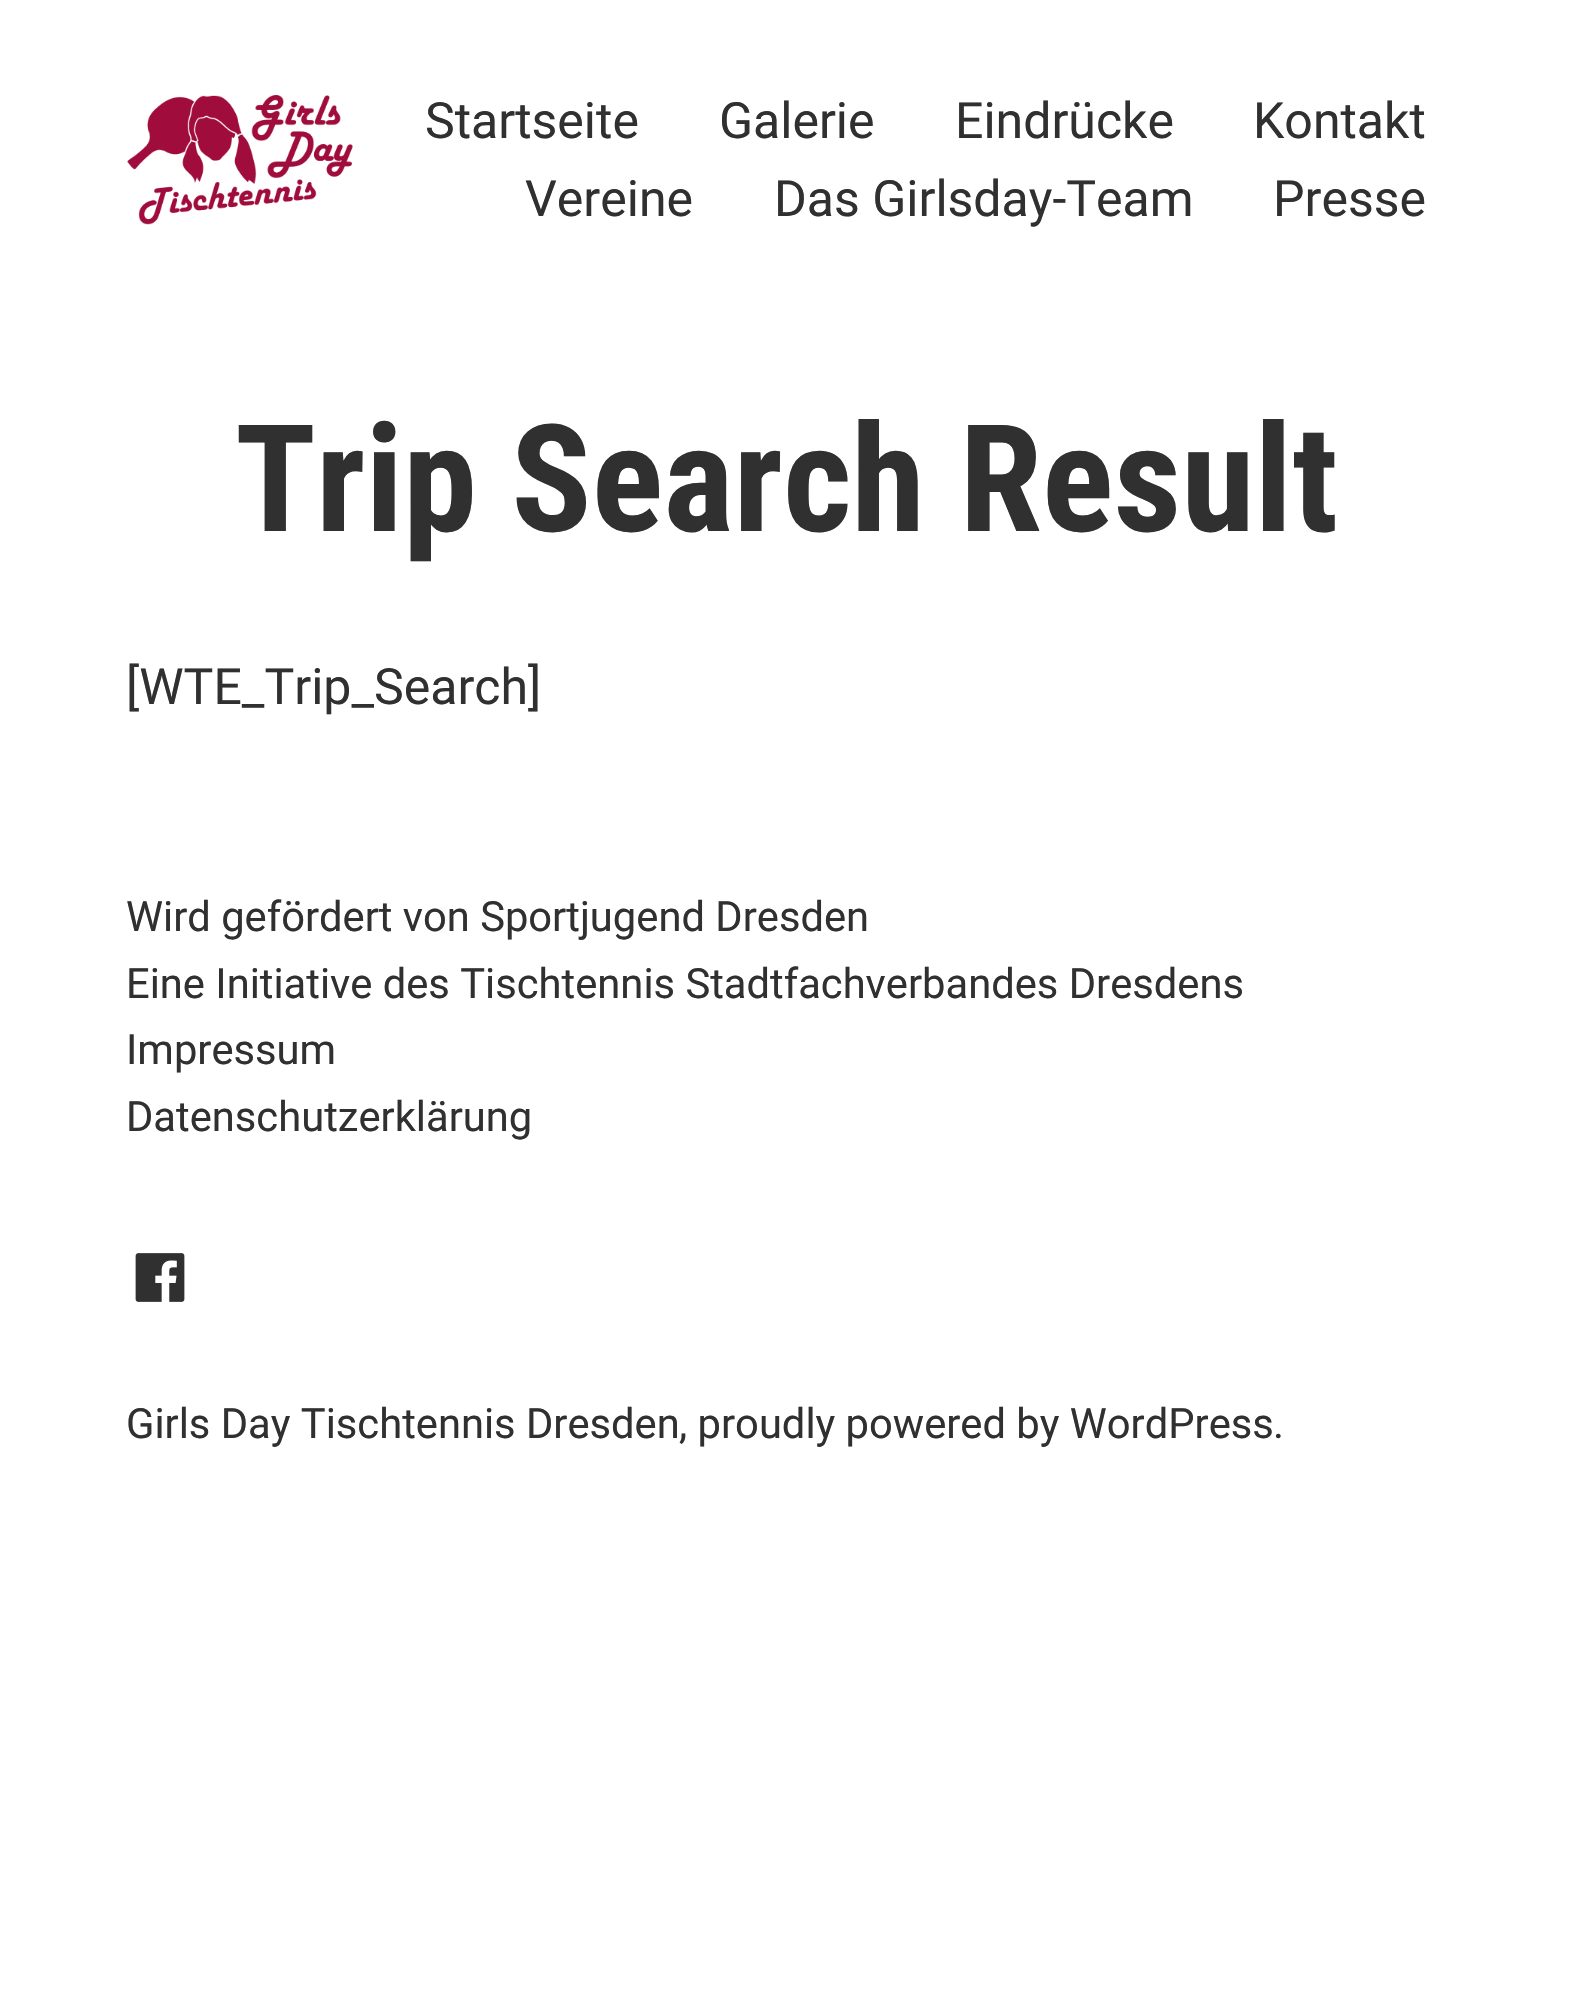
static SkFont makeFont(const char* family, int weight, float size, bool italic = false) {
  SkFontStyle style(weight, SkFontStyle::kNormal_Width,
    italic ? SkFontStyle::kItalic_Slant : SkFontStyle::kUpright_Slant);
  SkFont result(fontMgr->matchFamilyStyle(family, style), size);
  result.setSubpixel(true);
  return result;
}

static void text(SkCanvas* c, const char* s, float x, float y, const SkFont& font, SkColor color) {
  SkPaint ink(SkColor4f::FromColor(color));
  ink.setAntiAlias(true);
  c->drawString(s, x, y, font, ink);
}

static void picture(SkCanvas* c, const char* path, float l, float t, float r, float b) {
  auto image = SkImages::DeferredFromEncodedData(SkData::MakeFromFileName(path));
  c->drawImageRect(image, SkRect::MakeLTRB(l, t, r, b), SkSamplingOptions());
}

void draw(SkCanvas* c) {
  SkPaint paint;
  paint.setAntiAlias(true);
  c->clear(0xffffffff);
  picture(c, "img_01.png", 127, 95, 353, 225);
  SkFont face1 = makeFont("Roboto", 400, 50);
  text(c, "Startseite", 425, 138, face1, 0xff303030);
  text(c, "Galerie", 719, 138, face1, 0xff303030);
  text(c, "Eindrücke", 955, 138, face1, 0xff303030);
  text(c, "Kontakt", 1253, 138, face1, 0xff303030);
  text(c, "Vereine", 525, 216, face1, 0xff303030);
  text(c, "Das Girlsday-Team", 774, 216, face1, 0xff303030);
  text(c, "Presse", 1273, 216, face1, 0xff303030);
  SkFont face2 = makeFont("Roboto Condensed", 700, 149.25f);
  text(c, "Trip Search Result", 235, 531, face2, 0xff303030);
  text(c, "[WTE_Trip_Search]", 126, 704, face1, 0xff303030);
  SkFont face3 = makeFont("Roboto", 400, 41.7f);
  text(c, "Wird gefördert von Sportjugend Dresden", 126, 931, face3, 0xff303030);
  text(c, "Eine Initiative des Tischtennis Stadtfachverbandes Dresdens", 126, 998, face3, 0xff303030);
  text(c, "Impressum", 126, 1064, face3, 0xff303030);
  text(c, "Datenschutzerklärung", 126, 1131, face3, 0xff303030);
  picture(c, "img_02.png", 135, 1253, 185, 1302);
  text(c, "Girls Day Tischtennis Dresden", 126, 1438, face3, 0xff303030);
  text(c, ", proudly powered by WordPress", 679, 1438, face3, 0xff303030);
  text(c, ".", 1273, 1438, face3, 0xff303030);
}
